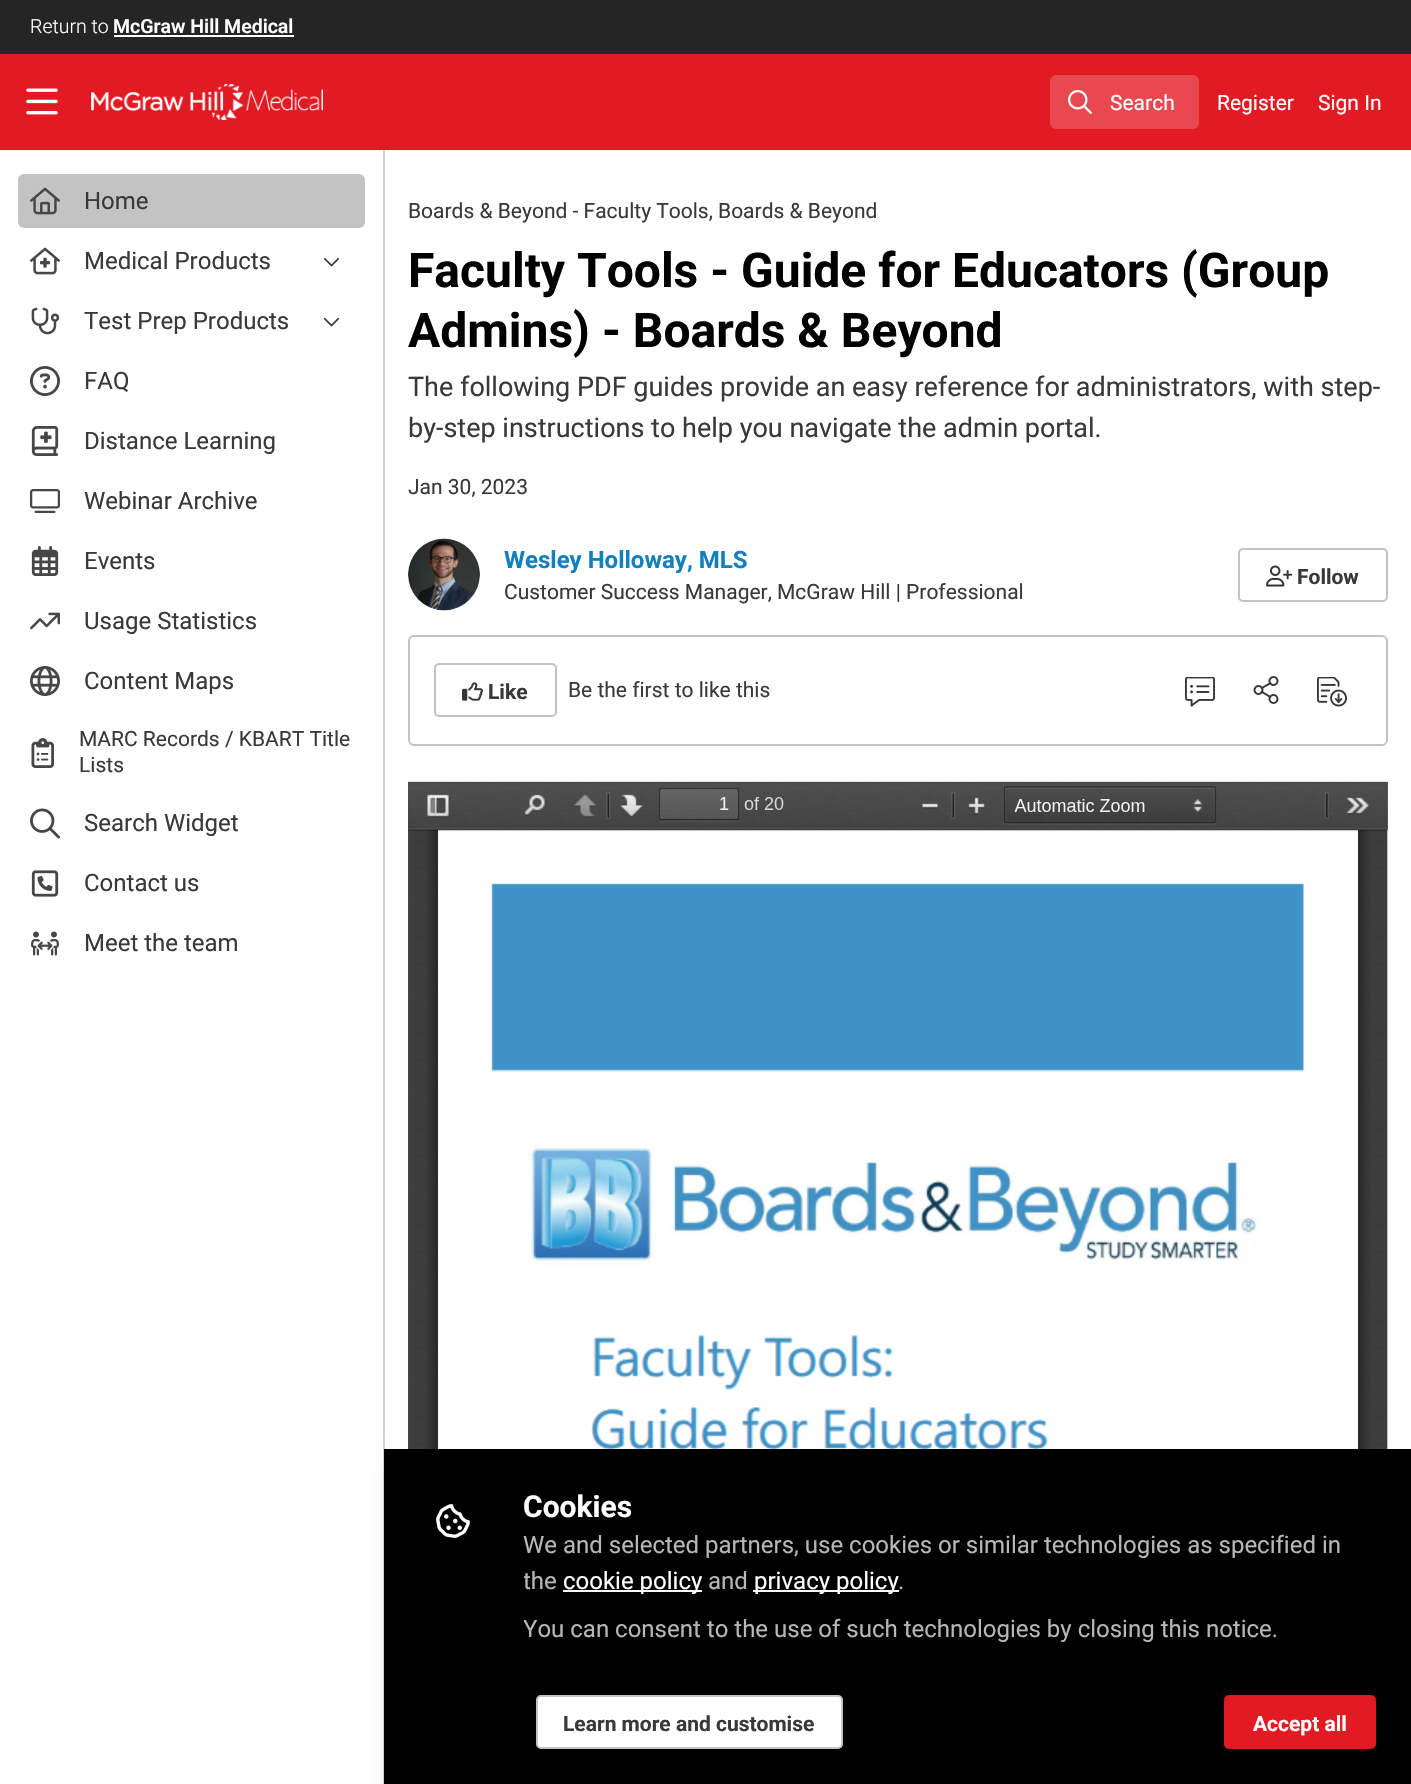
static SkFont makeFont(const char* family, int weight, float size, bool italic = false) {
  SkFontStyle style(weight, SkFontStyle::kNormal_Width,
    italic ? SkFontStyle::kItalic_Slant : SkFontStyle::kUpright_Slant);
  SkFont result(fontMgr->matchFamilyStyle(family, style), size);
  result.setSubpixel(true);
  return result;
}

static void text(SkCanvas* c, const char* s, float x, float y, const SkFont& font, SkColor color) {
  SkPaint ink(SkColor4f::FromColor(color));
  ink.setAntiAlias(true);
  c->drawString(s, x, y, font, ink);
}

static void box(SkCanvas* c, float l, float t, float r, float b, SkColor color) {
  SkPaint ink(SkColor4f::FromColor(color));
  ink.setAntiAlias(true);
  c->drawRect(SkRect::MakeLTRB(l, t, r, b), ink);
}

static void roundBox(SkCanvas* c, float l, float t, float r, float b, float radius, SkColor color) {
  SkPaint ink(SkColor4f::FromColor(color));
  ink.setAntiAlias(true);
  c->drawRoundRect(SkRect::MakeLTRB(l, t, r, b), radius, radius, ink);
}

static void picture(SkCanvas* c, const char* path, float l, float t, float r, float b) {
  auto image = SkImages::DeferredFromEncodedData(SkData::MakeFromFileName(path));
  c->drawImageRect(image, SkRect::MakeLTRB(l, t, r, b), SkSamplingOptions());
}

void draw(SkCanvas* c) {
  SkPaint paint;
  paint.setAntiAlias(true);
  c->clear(0xffffffff);
  box(c, 0, 0, 1411, 54, 0xff252525);
  SkFont face1 = makeFont("Roboto", 300, 19.5f);
  text(c, "Return to", 30, 33, face1, 0xffffffff);
  SkFont face2 = makeFont("Roboto", 600, 19.5f);
  text(c, "McGraw Hill Medical", 113, 33, face2, 0xffffffff);
  box(c, 114, 35, 294, 37, 0xffffffff);
  box(c, 0, 54, 1411, 150, 0xffe21a23);
  picture(c, "img_01.png", 26, 88, 58, 115);
  picture(c, "img_02.png", 91, 84, 323, 120);
  roundBox(c, 1050, 75, 1199, 129, 6, 0xffe8484f);
  picture(c, "img_03.png", 1068, 90, 1092, 114);
  SkFont face3 = makeFont("Roboto", 400, 21);
  text(c, "Search", 1110, 110, face3, 0xffffffff);
  text(c, "Register", 1217, 110, face3, 0xffffffff);
  text(c, "Sign In", 1318, 110, face3, 0xffffffff);
  box(c, 383, 150, 385, 1784, 0xffd2d2d2);
  roundBox(c, 18, 174, 365, 228, 6, 0xffc3c3c3);
  picture(c, "img_04.png", 30, 187, 60, 215);
  SkFont face4 = makeFont("Roboto", 400, 24);
  text(c, "Home", 84, 209, face4, 0xff373a36);
  picture(c, "img_05.png", 30, 247, 60, 275);
  text(c, "Medical Products", 84, 269, face4, 0xff373a36);
  picture(c, "img_06.png", 324, 258, 339, 267);
  picture(c, "img_07.png", 31, 307, 60, 335);
  text(c, "Test Prep Products", 84, 329, face4, 0xff373a36);
  picture(c, "img_06.png", 324, 318, 339, 327);
  picture(c, "img_08.png", 30, 366, 60, 396);
  text(c, "FAQ", 84, 389, face4, 0xff373a36);
  picture(c, "img_09.png", 31, 426, 59, 456);
  text(c, "Distance Learning", 84, 449, face4, 0xff373a36);
  picture(c, "img_10.png", 30, 489, 60, 513);
  text(c, "Webinar Archive", 84, 509, face4, 0xff373a36);
  picture(c, "img_11.png", 31, 546, 59, 576);
  text(c, "Events", 84, 569, face4, 0xff373a36);
  picture(c, "img_12.png", 30, 612, 60, 630);
  text(c, "Usage Statistics", 84, 629, face4, 0xff373a36);
  picture(c, "img_13.png", 30, 666, 60, 696);
  text(c, "Content Maps", 84, 689, face4, 0xff373a36);
  picture(c, "img_14.png", 31, 738, 54, 768);
  text(c, "MARC Records / KBART Title", 79, 746, face3, 0xff373a36);
  text(c, "Lists", 79, 772, face3, 0xff373a36);
  picture(c, "img_15.png", 30, 808, 60, 839);
  text(c, "Search Widget", 84, 831, face4, 0xff373a36);
  picture(c, "img_16.png", 31, 870, 59, 897);
  text(c, "Contact us", 84, 891, face4, 0xff373a36);
  picture(c, "img_17.png", 31, 931, 59, 956);
  text(c, "Meet the team", 84, 951, face4, 0xff373a36);
  text(c, "Boards & Beyond - Faculty Tools, Boards & Beyond", 408, 218, face3, 0xff373a36);
  SkFont face5 = makeFont("Roboto", 700, 48);
  text(c, "Faculty Tools - Guide for Educators (Group", 408, 287, face5, 0xff000000);
  text(c, "Admins) - Boards & Beyond", 408, 347, face5, 0xff000000);
  SkFont face6 = makeFont("Roboto", 400, 27);
  text(c, "The following PDF guides provide an easy reference for administrators, with step-", 408, 396, face6, 0xff373a36);
  text(c, "by-step instructions to help you navigate the admin portal.", 408, 437, face6, 0xff373a36);
  text(c, "Jan 30, 2023", 408, 494, face3, 0xff373a36);
  picture(c, "img_18.png", 408, 538, 480, 611);
  SkFont face7 = makeFont("Roboto", 700, 24);
  text(c, "Wesley Holloway, MLS", 504, 568, face7, 0xff1280be);
  text(c, "Customer Success Manager, McGraw Hill | Professional", 504, 599, face3, 0xff373a36);
  paint.setStyle(SkPaint::kStroke_Style);
  paint.setStrokeWidth(2);
  paint.setColor(0xffc3c3c3);
  c->drawRoundRect(SkRect::MakeLTRB(1239, 549, 1387, 601), 4, 4, paint);
  picture(c, "img_19.png", 1266, 565, 1293, 587);
  SkFont face8 = makeFont("Roboto", 700, 21);
  text(c, "Follow", 1297, 584, face8, 0xff373a36);
  c->drawRoundRect(SkRect::MakeLTRB(409, 636, 1387, 745), 5, 5, paint);
  c->drawRoundRect(SkRect::MakeLTRB(435, 664, 556, 716), 4, 4, paint);
  picture(c, "img_20.png", 462, 682, 483, 701);
  text(c, "Like", 488, 699, face8, 0xff373a36);
  text(c, "Be the first to like this", 568, 697, face3, 0xff373a36);
  picture(c, "img_21.png", 1185, 677, 1215, 707);
  picture(c, "img_22.png", 1253, 676, 1279, 704);
  picture(c, "img_23.png", 1317, 677, 1347, 707);
  box(c, 1387, 782, 1388, 1449, 0xffd2d2d2);
  picture(c, "img_24.png", 408, 781, 1388, 1449);
  paint.setStyle(SkPaint::kFill_Style);
  paint.setColor(0x1a000000);
  paint.setMaskFilter(SkMaskFilter::MakeBlur(kNormal_SkBlurStyle, 11));
  c->drawRect(SkRect::MakeLTRB(389, 1469, 1407, 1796), paint);
  paint.setMaskFilter(nullptr);
  box(c, 384, 1449, 1411, 1784, 0xff000000);
  picture(c, "img_25.png", 436, 1504, 470, 1538);
  SkFont face9 = makeFont("Roboto", 700, 30);
  text(c, "Cookies", 523, 1517, face9, 0xffffffff);
  text(c, "We and selected partners, use cookies or similar technologies as specified in", 523, 1553, face4, 0xffb7b7b7);
  c->save();
  c->clipRect(SkRect::MakeLTRB(524, 1527, 1376, 1671));
  text(c, "the", 523, 1589, face4, 0xffb7b7b7);
  c->restore();
  box(c, 563, 1590, 702, 1592, 0xffffffff);
  text(c, "cookie policy", 563, 1589, face4, 0xffffffff);
  text(c, "and", 708, 1589, face4, 0xffb7b7b7);
  box(c, 753, 1590, 899, 1592, 0xffffffff);
  text(c, "privacy policy", 754, 1589, face4, 0xffffffff);
  text(c, ".", 898, 1589, face4, 0xffb7b7b7);
  c->save();
  c->clipRect(SkRect::MakeLTRB(524, 1527, 1376, 1671));
  text(c, "You can consent to the use of such technologies by closing this notice.", 523, 1637, face4, 0xffb7b7b7);
  c->restore();
  paint.setColor(0xffffffff);
  c->drawRoundRect(SkRect::MakeLTRB(537, 1696, 842, 1748), 4, 4, paint);
  paint.setStyle(SkPaint::kStroke_Style);
  paint.setColor(0xffc3c3c3);
  c->drawRoundRect(SkRect::MakeLTRB(537, 1696, 842, 1748), 4, 4, paint);
  text(c, "Learn more and customise", 563, 1731, face8, 0xff373a36);
  paint.setStyle(SkPaint::kFill_Style);
  paint.setColor(0xffe21a23);
  c->drawRoundRect(SkRect::MakeLTRB(1225, 1696, 1375, 1748), 4, 4, paint);
  paint.setStyle(SkPaint::kStroke_Style);
  c->drawRoundRect(SkRect::MakeLTRB(1225, 1696, 1375, 1748), 4, 4, paint);
  text(c, "Accept all", 1253, 1731, face8, 0xffffffff);
}
